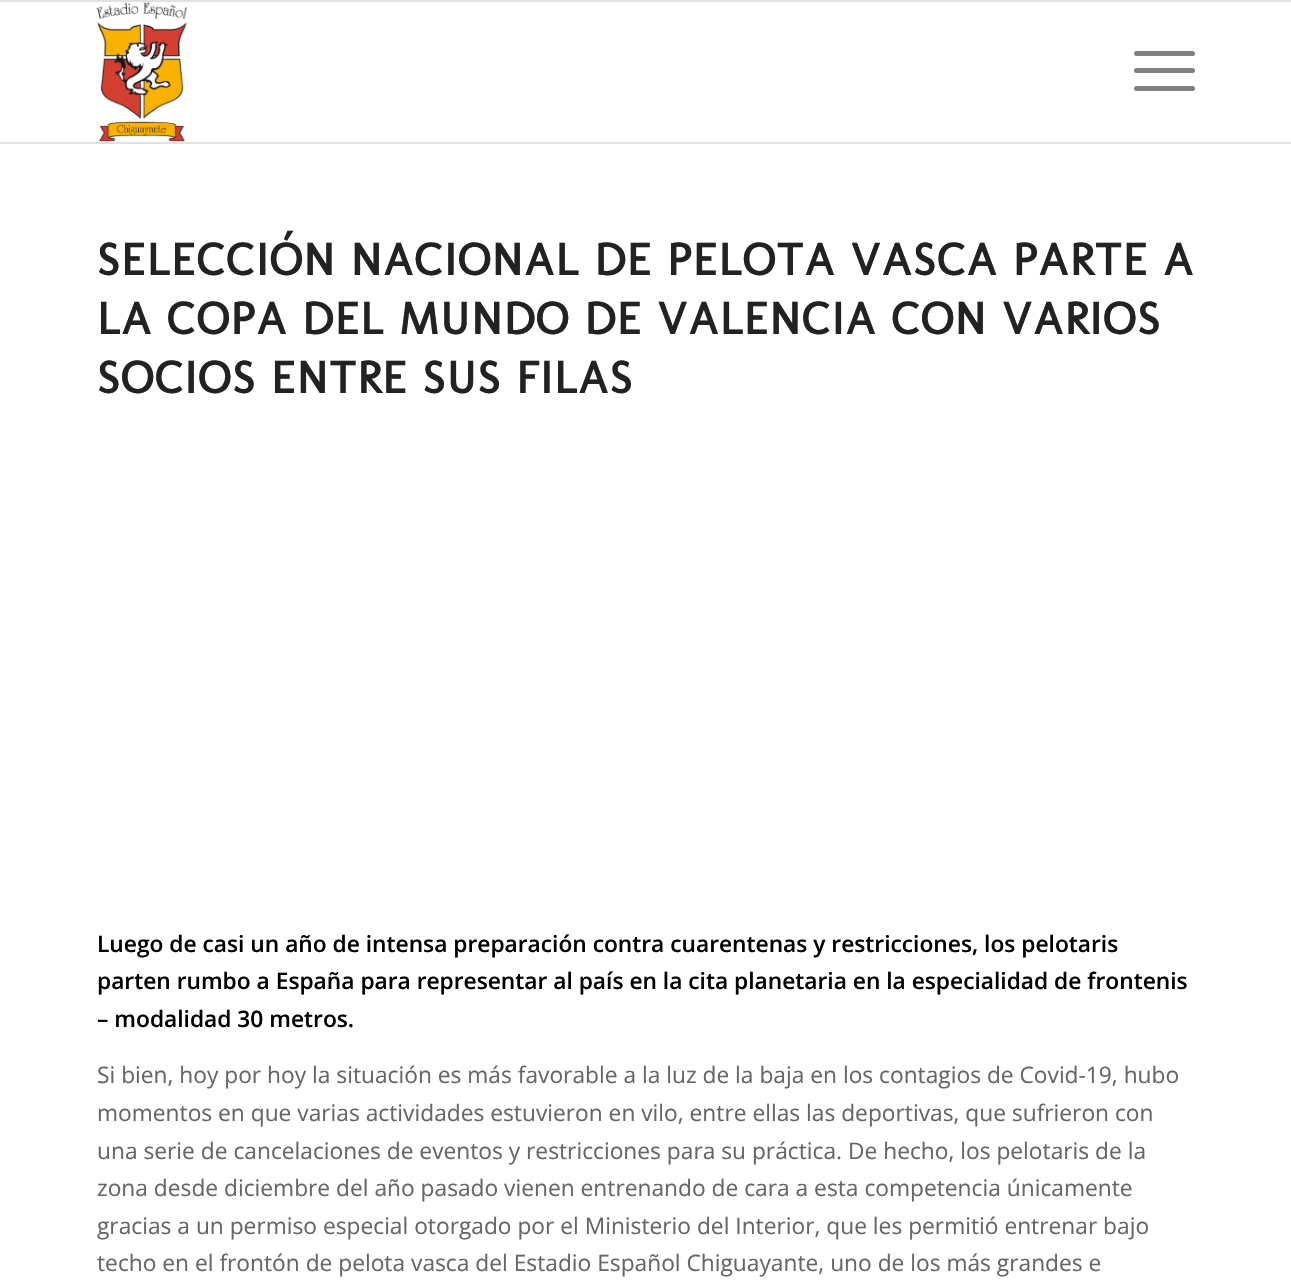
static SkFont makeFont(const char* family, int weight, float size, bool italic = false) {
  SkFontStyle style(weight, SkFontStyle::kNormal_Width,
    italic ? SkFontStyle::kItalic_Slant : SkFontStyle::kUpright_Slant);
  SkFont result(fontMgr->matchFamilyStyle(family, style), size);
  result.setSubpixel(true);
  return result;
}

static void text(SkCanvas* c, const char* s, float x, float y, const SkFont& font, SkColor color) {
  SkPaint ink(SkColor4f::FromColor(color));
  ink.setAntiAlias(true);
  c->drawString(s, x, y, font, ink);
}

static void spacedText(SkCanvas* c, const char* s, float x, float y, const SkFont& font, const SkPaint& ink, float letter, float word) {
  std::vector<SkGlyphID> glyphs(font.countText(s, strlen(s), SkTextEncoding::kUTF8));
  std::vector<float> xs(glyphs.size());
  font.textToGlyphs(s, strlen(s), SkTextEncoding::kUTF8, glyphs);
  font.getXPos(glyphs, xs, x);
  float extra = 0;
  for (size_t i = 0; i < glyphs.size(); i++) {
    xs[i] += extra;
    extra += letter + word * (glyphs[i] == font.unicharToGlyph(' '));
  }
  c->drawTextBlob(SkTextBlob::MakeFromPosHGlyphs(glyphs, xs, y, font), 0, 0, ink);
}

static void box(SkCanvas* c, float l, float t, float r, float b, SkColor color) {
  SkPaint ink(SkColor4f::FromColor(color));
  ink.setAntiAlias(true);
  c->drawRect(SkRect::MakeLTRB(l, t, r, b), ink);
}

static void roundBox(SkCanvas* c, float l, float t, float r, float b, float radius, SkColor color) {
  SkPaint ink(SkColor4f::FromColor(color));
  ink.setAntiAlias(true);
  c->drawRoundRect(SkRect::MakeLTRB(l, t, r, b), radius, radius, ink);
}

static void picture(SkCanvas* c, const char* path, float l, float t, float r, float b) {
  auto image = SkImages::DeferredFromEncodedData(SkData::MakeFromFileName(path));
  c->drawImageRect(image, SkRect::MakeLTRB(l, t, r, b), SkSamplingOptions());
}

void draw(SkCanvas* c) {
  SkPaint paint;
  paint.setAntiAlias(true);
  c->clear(0xffffffff);
  box(c, 0, 0, 1291, 2, 0xffe1e1e1);
  box(c, 0, 142, 1291, 144, 0xffe1e1e1);
  picture(c, "img_01.png", 96, 2, 188, 142);
  roundBox(c, 1134, 68, 1195, 73, 2.5f, 0xff808080);
  roundBox(c, 1134, 51, 1195, 56, 2.5f, 0xff808080);
  roundBox(c, 1134, 86, 1195, 91, 2.5f, 0xff808080);
  SkFont face1 = makeFont("Molengo", 700, 45.5f);
  paint.setColor(0xff222222);
  spacedText(c, "SELECCIÓN NACIONAL DE PELOTA VASCA PARTE A", 97, 275, face1, paint, 1.75f, 0);
  spacedText(c, "LA COPA DEL MUNDO DE VALENCIA CON VARIOS", 97, 334, face1, paint, 1.75f, 0);
  spacedText(c, "SOCIOS ENTRE SUS FILAS", 97, 393, face1, paint, 1.75f, 0);
  SkFont face2 = makeFont("Open Sans", 600, 22.75f);
  text(c, "Luego de casi un año de intensa preparación contra cuarentenas y restricciones, los pelotaris", 97, 952, face2, 0xff000000);
  text(c, "parten rumbo a España para representar al país en la cita planetaria en la especialidad de frontenis", 97, 989, face2, 0xff000000);
  text(c, "– modalidad 30 metros.", 97, 1027, face2, 0xff000000);
  SkFont face3 = makeFont("Open Sans", 400, 22.75f);
  text(c, "Si bien, hoy por hoy la situación es más favorable a la luz de la baja en los contagios de Covid-19, hubo", 97, 1083, face3, 0xff666666);
  text(c, "momentos en que varias actividades estuvieron en vilo, entre ellas las deportivas, que sufrieron con", 97, 1121, face3, 0xff666666);
  text(c, "una serie de cancelaciones de eventos y restricciones para su práctica. De hecho, los pelotaris de la", 97, 1159, face3, 0xff666666);
  text(c, "zona desde diciembre del año pasado vienen entrenando de cara a esta competencia únicamente", 97, 1196, face3, 0xff666666);
  text(c, "gracias a un permiso especial otorgado por el Ministerio del Interior, que les permitió entrenar bajo", 97, 1234, face3, 0xff666666);
  text(c, "techo en el frontón de pelota vasca del Estadio Español Chiguayante, uno de los más grandes e", 97, 1271, face3, 0xff666666);
}
